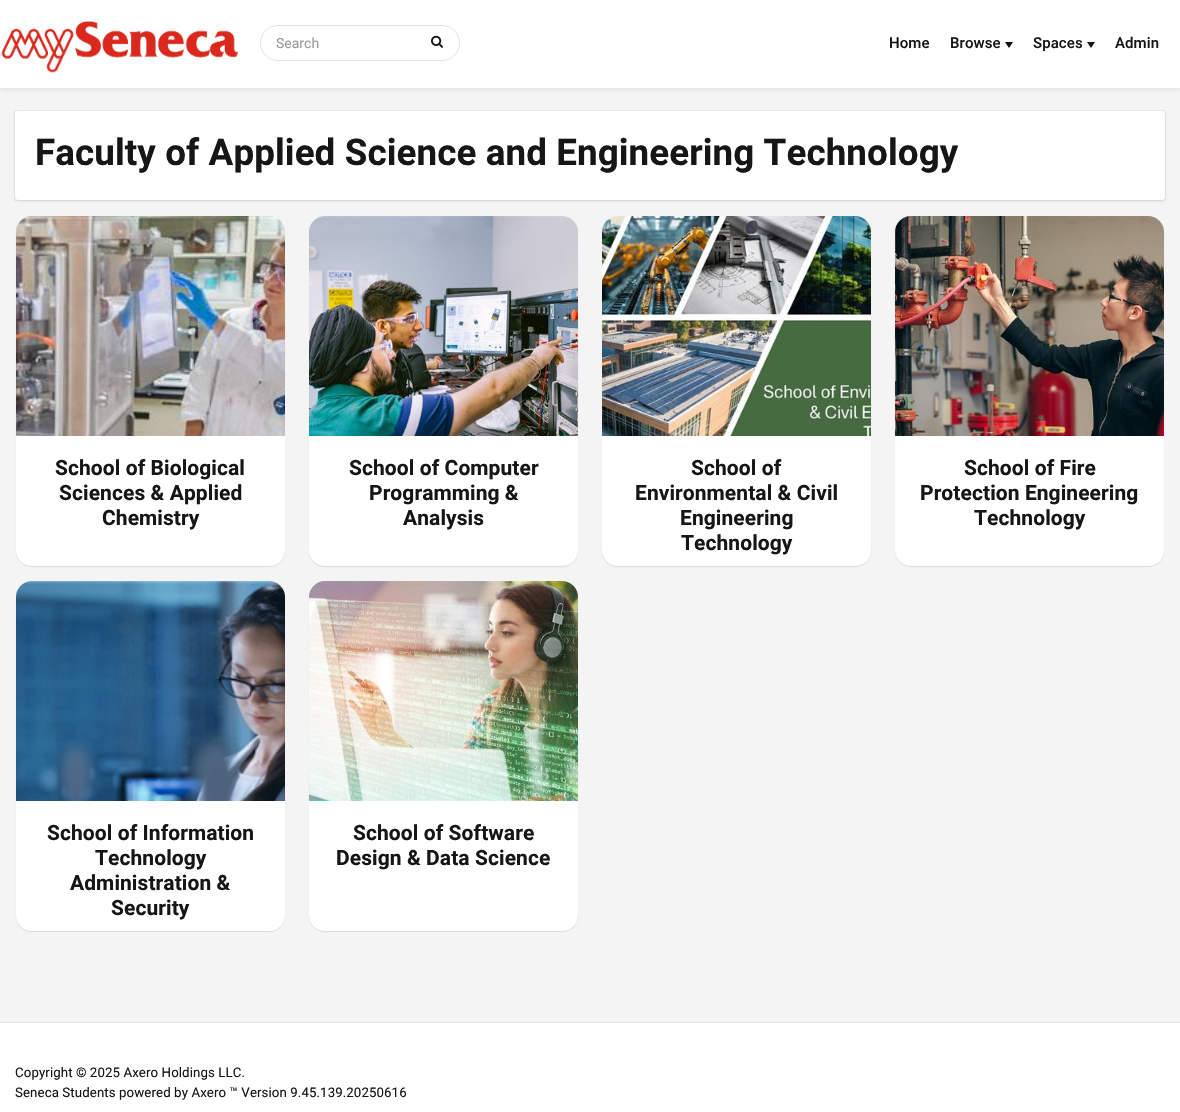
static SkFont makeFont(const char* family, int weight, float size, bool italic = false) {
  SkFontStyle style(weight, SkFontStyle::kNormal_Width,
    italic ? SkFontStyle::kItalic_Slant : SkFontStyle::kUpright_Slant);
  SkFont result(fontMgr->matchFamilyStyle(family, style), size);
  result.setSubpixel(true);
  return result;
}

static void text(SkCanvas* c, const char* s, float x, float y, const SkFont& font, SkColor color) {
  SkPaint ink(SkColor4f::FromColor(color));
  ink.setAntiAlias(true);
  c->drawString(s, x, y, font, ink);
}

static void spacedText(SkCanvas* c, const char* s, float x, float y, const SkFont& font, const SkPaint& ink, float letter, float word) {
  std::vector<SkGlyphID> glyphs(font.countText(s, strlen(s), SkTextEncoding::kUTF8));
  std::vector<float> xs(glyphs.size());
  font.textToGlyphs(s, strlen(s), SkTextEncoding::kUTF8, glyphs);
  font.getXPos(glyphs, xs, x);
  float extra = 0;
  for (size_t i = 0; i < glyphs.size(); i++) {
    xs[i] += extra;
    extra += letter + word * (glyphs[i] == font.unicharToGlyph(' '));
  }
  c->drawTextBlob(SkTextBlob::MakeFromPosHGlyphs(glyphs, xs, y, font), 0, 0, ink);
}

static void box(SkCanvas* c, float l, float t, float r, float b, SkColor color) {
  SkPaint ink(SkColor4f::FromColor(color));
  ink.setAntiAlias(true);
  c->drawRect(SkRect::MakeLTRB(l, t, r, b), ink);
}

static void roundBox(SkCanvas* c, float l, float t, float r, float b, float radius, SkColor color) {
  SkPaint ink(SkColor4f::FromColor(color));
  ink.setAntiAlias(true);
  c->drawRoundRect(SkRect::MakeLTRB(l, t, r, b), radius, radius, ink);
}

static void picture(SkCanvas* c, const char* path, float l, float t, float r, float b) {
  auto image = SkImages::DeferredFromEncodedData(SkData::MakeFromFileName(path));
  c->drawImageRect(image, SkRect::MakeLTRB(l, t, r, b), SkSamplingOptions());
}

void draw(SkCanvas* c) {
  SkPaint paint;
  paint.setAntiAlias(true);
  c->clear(0xfff4f4f4);
  paint.setColor(0x1a000000);
  paint.setMaskFilter(SkMaskFilter::MakeBlur(kNormal_SkBlurStyle, 2.5f));
  c->drawRect(SkRect::MakeLTRB(0, 1, 1180, 89), paint);
  paint.setMaskFilter(nullptr);
  box(c, 0, 0, 1180, 88, 0xffffffff);
  picture(c, "img_01.png", 1, 20, 239, 73);
  paint.setStyle(SkPaint::kStroke_Style);
  paint.setStrokeWidth(1);
  paint.setColor(0xffe0e0e0);
  c->drawRoundRect(SkRect::MakeLTRB(260.5f, 25.5f, 459.5f, 60.5f), 17.5f, 17.5f, paint);
  SkFont face1 = makeFont("Roboto", 400, 14);
  text(c, "Search", 276, 48, face1, 0xff999999);
  picture(c, "img_02.png", 431, 35, 443, 48);
  SkFont face2 = makeFont("Roboto", 500, 15);
  paint.setStyle(SkPaint::kFill_Style);
  paint.setColor(0xff161616);
  spacedText(c, "Home", 889, 48, face2, paint, 0.08f, 0);
  spacedText(c, "Browse", 950, 48, face2, paint, 0.08f, 0);
  paint.setColor(0xff111111);
  c->drawPath(SkPathBuilder().moveTo(1005, 42).lineTo(1013, 42).lineTo(1009, 48).close().detach(), paint);
  paint.setColor(0xff161616);
  spacedText(c, "Spaces", 1033, 48, face2, paint, 0.08f, 0);
  paint.setColor(0xff111111);
  c->drawPath(SkPathBuilder().moveTo(1087, 42).lineTo(1095, 42).lineTo(1091, 48).close().detach(), paint);
  paint.setColor(0xff161616);
  spacedText(c, "Admin", 1115, 48, face2, paint, 0.08f, 0);
  paint.setColor(0x263f3f44);
  paint.setMaskFilter(SkMaskFilter::MakeBlur(kNormal_SkBlurStyle, 1.5f));
  c->drawRoundRect(SkRect::MakeLTRB(15, 112, 1165, 201), 4, 4, paint);
  paint.setMaskFilter(nullptr);
  paint.setStyle(SkPaint::kStroke_Style);
  paint.setColor(0x0d3f3f44);
  c->drawRect(SkRect::MakeLTRB(14.5f, 110.5f, 1165.5f, 200.5f), paint);
  roundBox(c, 15, 111, 1165, 200, 4, 0xffffffff);
  SkFont face3 = makeFont("Roboto", 700, 36.8f);
  paint.setStyle(SkPaint::kFill_Style);
  paint.setColor(0xff161616);
  spacedText(c, "Faculty of Applied Science and Engineering Technology", 35, 165, face3, paint, 0.08f, 0);
  paint.setColor(0x1a000000);
  paint.setMaskFilter(SkMaskFilter::MakeBlur(kNormal_SkBlurStyle, 0.5f));
  c->drawRoundRect(SkRect::MakeLTRB(16, 217, 285, 567), 16, 16, paint);
  paint.setMaskFilter(nullptr);
  picture(c, "img_03.png", 16, 216, 285, 436);
  paint.setColor(0xffffffff);
  c->drawPath(SkPathBuilder().moveTo(16, 436).lineTo(285, 436).lineTo(285, 550).cubicTo(285, 559, 278, 566, 269, 566).lineTo(32, 566).cubicTo(23, 566, 16, 559, 16, 550).close().detach(), paint);
  SkFont face4 = makeFont("Roboto", 700, 21);
  paint.setColor(0xff161616);
  spacedText(c, "School of Biological", 55, 475, face4, paint, 0.08f, 0);
  spacedText(c, "Sciences & Applied", 59, 500, face4, paint, 0.08f, 0);
  spacedText(c, "Chemistry", 102, 525, face4, paint, 0.08f, 0);
  paint.setColor(0x1a000000);
  paint.setMaskFilter(SkMaskFilter::MakeBlur(kNormal_SkBlurStyle, 0.5f));
  c->drawRoundRect(SkRect::MakeLTRB(309, 217, 578, 567), 16, 16, paint);
  paint.setMaskFilter(nullptr);
  picture(c, "img_04.png", 309, 216, 578, 436);
  paint.setColor(0xffffffff);
  c->drawPath(SkPathBuilder().moveTo(309, 436).lineTo(578, 436).lineTo(578, 550).cubicTo(578, 559, 571, 566, 562, 566).lineTo(325, 566).cubicTo(316, 566, 309, 559, 309, 550).close().detach(), paint);
  paint.setColor(0xff161616);
  spacedText(c, "School of Computer", 349, 475, face4, paint, 0.08f, 0);
  spacedText(c, "Programming &", 369, 500, face4, paint, 0.08f, 0);
  spacedText(c, "Analysis", 403, 525, face4, paint, 0.08f, 0);
  paint.setColor(0x1a000000);
  paint.setMaskFilter(SkMaskFilter::MakeBlur(kNormal_SkBlurStyle, 0.5f));
  c->drawRoundRect(SkRect::MakeLTRB(602, 217, 871, 567), 16, 16, paint);
  paint.setMaskFilter(nullptr);
  picture(c, "img_05.png", 602, 216, 871, 436);
  paint.setColor(0xffffffff);
  c->drawPath(SkPathBuilder().moveTo(602, 436).lineTo(871, 436).lineTo(871, 550).cubicTo(871, 559, 864, 566, 855, 566).lineTo(618, 566).cubicTo(609, 566, 602, 559, 602, 550).close().detach(), paint);
  paint.setColor(0xff161616);
  spacedText(c, "School of", 691, 475, face4, paint, 0.08f, 0);
  spacedText(c, "Environmental & Civil", 635, 500, face4, paint, 0.08f, 0);
  spacedText(c, "Engineering", 680, 525, face4, paint, 0.08f, 0);
  spacedText(c, "Technology", 681, 550, face4, paint, 0.08f, 0);
  paint.setColor(0x1a000000);
  paint.setMaskFilter(SkMaskFilter::MakeBlur(kNormal_SkBlurStyle, 0.5f));
  c->drawRoundRect(SkRect::MakeLTRB(895, 217, 1164, 567), 16, 16, paint);
  paint.setMaskFilter(nullptr);
  picture(c, "img_06.png", 895, 216, 1164, 436);
  paint.setColor(0xffffffff);
  c->drawPath(SkPathBuilder().moveTo(895, 436).lineTo(1164, 436).lineTo(1164, 550).cubicTo(1164, 559, 1157, 566, 1148, 566).lineTo(911, 566).cubicTo(902, 566, 895, 559, 895, 550).close().detach(), paint);
  paint.setColor(0xff161616);
  spacedText(c, "School of Fire", 964, 475, face4, paint, 0.08f, 0);
  spacedText(c, "Protection Engineering", 920, 500, face4, paint, 0.08f, 0);
  spacedText(c, "Technology", 974, 525, face4, paint, 0.08f, 0);
  paint.setColor(0x1a000000);
  paint.setMaskFilter(SkMaskFilter::MakeBlur(kNormal_SkBlurStyle, 0.5f));
  c->drawRoundRect(SkRect::MakeLTRB(16, 582, 285, 932), 16, 16, paint);
  paint.setMaskFilter(nullptr);
  picture(c, "img_07.png", 16, 581, 285, 801);
  paint.setColor(0xffffffff);
  c->drawPath(SkPathBuilder().moveTo(16, 801).lineTo(285, 801).lineTo(285, 915).cubicTo(285, 924, 278, 931, 269, 931).lineTo(32, 931).cubicTo(23, 931, 16, 924, 16, 915).close().detach(), paint);
  paint.setColor(0xff161616);
  spacedText(c, "School of Information", 47, 840, face4, paint, 0.08f, 0);
  spacedText(c, "Technology", 95, 865, face4, paint, 0.08f, 0);
  spacedText(c, "Administration &", 70, 890, face4, paint, 0.08f, 0);
  spacedText(c, "Security", 111, 915, face4, paint, 0.08f, 0);
  paint.setColor(0x1a000000);
  paint.setMaskFilter(SkMaskFilter::MakeBlur(kNormal_SkBlurStyle, 0.5f));
  c->drawRoundRect(SkRect::MakeLTRB(309, 582, 578, 932), 16, 16, paint);
  paint.setMaskFilter(nullptr);
  picture(c, "img_08.png", 309, 581, 578, 801);
  paint.setColor(0xffffffff);
  c->drawPath(SkPathBuilder().moveTo(309, 801).lineTo(578, 801).lineTo(578, 915).cubicTo(578, 924, 571, 931, 562, 931).lineTo(325, 931).cubicTo(316, 931, 309, 924, 309, 915).close().detach(), paint);
  paint.setColor(0xff161616);
  spacedText(c, "School of Software", 353, 840, face4, paint, 0.08f, 0);
  spacedText(c, "Design & Data Science", 336, 865, face4, paint, 0.08f, 0);
  box(c, 0, 1023, 1180, 1112, 0xffffffff);
  box(c, 0, 1022, 1180, 1023, 0xffe0e0e0);
  SkFont face5 = makeFont("Roboto", 400, 13.3f);
  spacedText(c, "Copyright © 2025 Axero Holdings LLC.", 15, 1077, face5, paint, 0.08f, 0);
  spacedText(c, "Seneca Students powered by Axero ™ Version 9.45.139.20250616", 15, 1097, face5, paint, 0.08f, 0);
}
